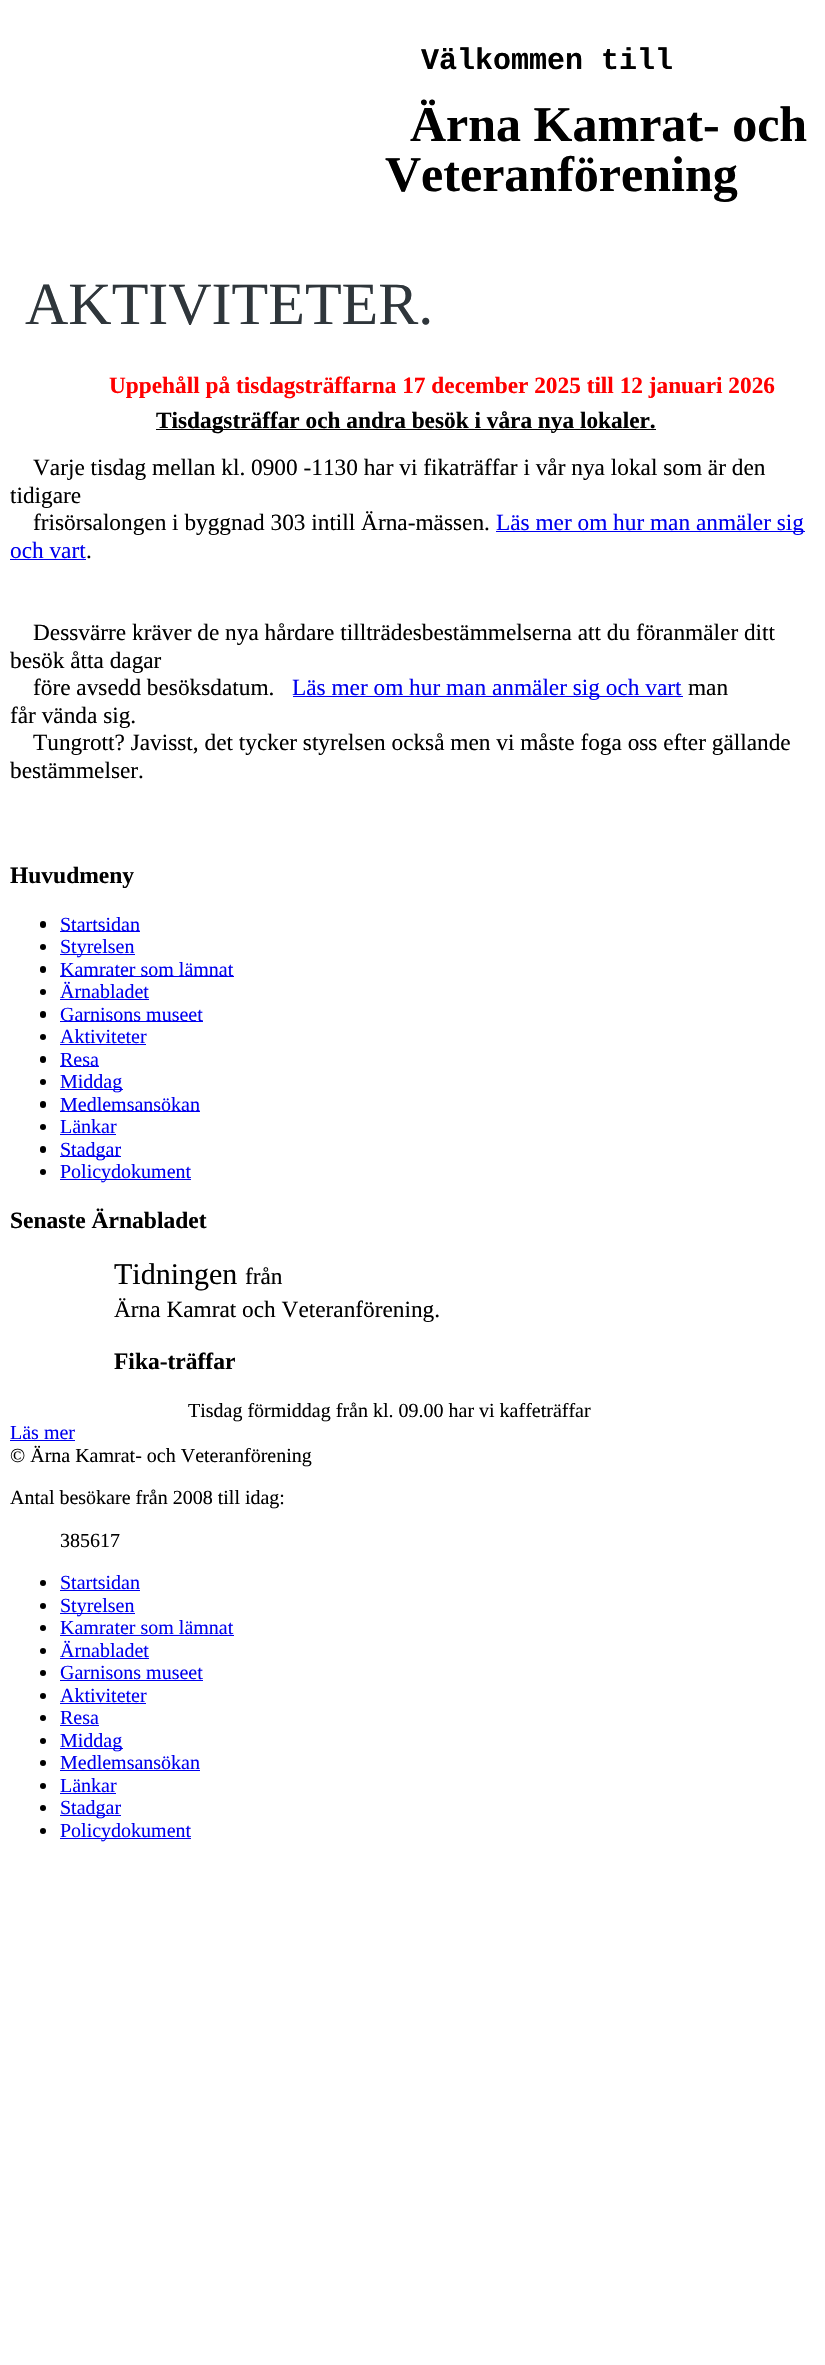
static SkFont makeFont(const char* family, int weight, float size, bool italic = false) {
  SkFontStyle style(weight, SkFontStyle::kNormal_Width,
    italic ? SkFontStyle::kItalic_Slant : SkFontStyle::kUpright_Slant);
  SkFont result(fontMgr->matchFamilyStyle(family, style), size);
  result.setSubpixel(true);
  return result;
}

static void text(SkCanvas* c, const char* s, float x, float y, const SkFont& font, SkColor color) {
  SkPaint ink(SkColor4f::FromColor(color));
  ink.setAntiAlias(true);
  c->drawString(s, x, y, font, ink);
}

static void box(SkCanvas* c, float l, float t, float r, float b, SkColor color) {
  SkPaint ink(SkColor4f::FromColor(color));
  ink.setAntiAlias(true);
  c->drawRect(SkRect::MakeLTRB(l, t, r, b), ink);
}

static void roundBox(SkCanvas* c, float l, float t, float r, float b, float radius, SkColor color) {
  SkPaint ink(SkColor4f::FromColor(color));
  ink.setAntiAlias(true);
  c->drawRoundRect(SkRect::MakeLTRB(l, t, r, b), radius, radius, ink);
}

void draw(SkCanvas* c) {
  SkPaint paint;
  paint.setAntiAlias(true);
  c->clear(0xffffffff);
  SkFont face1 = makeFont("Liberation Mono", 700, 30);
  text(c, "Välkommen till", 421, 69, face1, 0xff000000);
  SkFont face2 = makeFont("Liberation Serif", 700, 50);
  text(c, "Ärna Kamrat- och", 410, 141, face2, 0xff000000);
  text(c, "Veteranförening", 385, 191, face2, 0xff000000);
  SkFont face3 = makeFont("Liberation Serif", 400, 60);
  text(c, "AKTIVITETER.", 25, 324, face3, 0xff2f363b);
  SkFont face4 = makeFont("Liberation Serif", 700, 23.3f);
  text(c, "Uppehåll på tisdagsträffarna 17 december 2025 till 12 januari 2026", 109, 393, face4, 0xffff0000);
  box(c, 156, 429, 656, 430, 0xff000000);
  text(c, "Tisdagsträffar och andra besök i våra nya lokaler.", 156, 428, face4, 0xff000000);
  SkFont face5 = makeFont("Liberation Serif", 400, 23.3f);
  text(c, "Varje tisdag mellan kl. 0900 -1130 har vi fikaträffar i vår nya lokal som är den", 33, 475, face5, 0xff000000);
  text(c, "tidigare", 10, 503, face5, 0xff000000);
  text(c, "frisörsalongen i byggnad 303 intill Ärna-mässen.", 33, 530, face5, 0xff000000);
  box(c, 496, 531, 805, 532, 0xff0000ee);
  text(c, "Läs mer om hur man anmäler sig", 496, 530, face5, 0xff0000ee);
  text(c, "och vart", 10, 558, face5, 0xff0000ee);
  text(c, ".", 86, 558, face5, 0xff000000);
  box(c, 10, 559, 86, 560, 0xff0000ee);
  text(c, "Dessvärre kräver de nya hårdare tillträdesbestämmelserna att du föranmäler ditt", 33, 640, face5, 0xff000000);
  text(c, "besök åtta dagar", 10, 668, face5, 0xff000000);
  text(c, "före avsedd besöksdatum.", 33, 695, face5, 0xff000000);
  box(c, 293, 696, 683, 697, 0xff0000ee);
  text(c, "Läs mer om hur man anmäler sig och vart", 292, 695, face5, 0xff0000ee);
  text(c, "man", 688, 695, face5, 0xff000000);
  text(c, "får vända sig.", 10, 723, face5, 0xff000000);
  text(c, "Tungrott? Javisst, det tycker styrelsen också men vi måste foga oss efter gällande", 33, 750, face5, 0xff000000);
  text(c, "bestämmelser.", 10, 778, face5, 0xff000000);
  SkFont face6 = makeFont("Liberation Serif", 700, 23.5f);
  text(c, "Huvudmeny", 10, 883, face6, 0xff000000);
  roundBox(c, 40, 921, 46, 928, 3, 0xff000000);
  box(c, 60, 931, 140, 932, 0xff0000ee);
  SkFont face7 = makeFont("Liberation Serif", 400, 20);
  text(c, "Startsidan", 60, 931, face7, 0xff0000ee);
  paint.setColor(0xff000000);
  c->drawCircle(43, 947, 3, paint);
  box(c, 60, 954, 135, 955, 0xff0000ee);
  text(c, "Styrelsen", 60, 953, face7, 0xff0000ee);
  roundBox(c, 40, 966, 46, 973, 3, 0xff000000);
  box(c, 60, 976, 234, 977, 0xff0000ee);
  text(c, "Kamrater som lämnat", 60, 976, face7, 0xff0000ee);
  c->drawCircle(43, 992, 3, paint);
  text(c, "Ärnabladet", 60, 998, face7, 0xff0000ee);
  box(c, 60, 999, 149, 1000, 0xff0000ee);
  roundBox(c, 40, 1011, 46, 1018, 3, 0xff000000);
  box(c, 60, 1021, 203, 1022, 0xff0000ee);
  text(c, "Garnisons museet", 60, 1021, face7, 0xff0000ee);
  c->drawCircle(43, 1037, 3, paint);
  text(c, "Aktiviteter", 60, 1043, face7, 0xff0000ee);
  box(c, 60, 1044, 146, 1045, 0xff0000ee);
  roundBox(c, 40, 1056, 46, 1063, 3, 0xff000000);
  box(c, 60, 1066, 99, 1067, 0xff0000ee);
  text(c, "Resa", 60, 1066, face7, 0xff0000ee);
  c->drawCircle(43, 1082, 3, paint);
  box(c, 60, 1089, 123, 1090, 0xff0000ee);
  text(c, "Middag", 60, 1088, face7, 0xff0000ee);
  roundBox(c, 40, 1101, 46, 1108, 3, 0xff000000);
  box(c, 60, 1111, 200, 1112, 0xff0000ee);
  text(c, "Medlemsansökan", 60, 1111, face7, 0xff0000ee);
  c->drawCircle(43, 1127, 3, paint);
  text(c, "Länkar", 60, 1133, face7, 0xff0000ee);
  box(c, 60, 1134, 116, 1135, 0xff0000ee);
  roundBox(c, 40, 1146, 46, 1153, 3, 0xff000000);
  box(c, 60, 1156, 121, 1157, 0xff0000ee);
  text(c, "Stadgar", 60, 1156, face7, 0xff0000ee);
  c->drawCircle(43, 1172, 3, paint);
  box(c, 60, 1179, 191, 1180, 0xff0000ee);
  text(c, "Policydokument", 60, 1178, face7, 0xff0000ee);
  text(c, "Senaste Ärnabladet", 10, 1228, face6, 0xff000000);
  SkFont face8 = makeFont("Liberation Serif", 400, 30);
  text(c, "Tidningen", 114, 1284, face8, 0xff000000);
  text(c, "från", 245, 1284, face5, 0xff000000);
  text(c, "Ärna Kamrat och Veteranförening.", 114, 1317, face5, 0xff000000);
  text(c, "Fika-träffar", 114, 1369, face6, 0xff000000);
  text(c, "Tisdag förmiddag från kl. 09.00 har vi kaffeträffar", 188, 1417, face7, 0xff000000);
  text(c, "Läs mer", 10, 1439, face7, 0xff0000ee);
  box(c, 10, 1440, 75, 1441, 0xff0000ee);
  text(c, "© Ärna Kamrat- och Veteranförening", 10, 1462, face7, 0xff000000);
  text(c, "Antal besökare från 2008 till idag:", 10, 1504, face7, 0xff000000);
  text(c, "385617", 60, 1547, face7, 0xff000000);
  c->drawCircle(43, 1583, 3, paint);
  text(c, "Startsidan", 60, 1589, face7, 0xff0000ee);
  box(c, 60, 1590, 140, 1591, 0xff0000ee);
  c->drawCircle(43, 1606, 3, paint);
  box(c, 60, 1613, 135, 1614, 0xff0000ee);
  text(c, "Styrelsen", 60, 1612, face7, 0xff0000ee);
  c->drawCircle(43, 1628, 3, paint);
  text(c, "Kamrater som lämnat", 60, 1634, face7, 0xff0000ee);
  box(c, 60, 1635, 234, 1636, 0xff0000ee);
  c->drawCircle(43, 1651, 3, paint);
  text(c, "Ärnabladet", 60, 1657, face7, 0xff0000ee);
  box(c, 60, 1658, 149, 1659, 0xff0000ee);
  c->drawCircle(43, 1673, 3, paint);
  text(c, "Garnisons museet", 60, 1679, face7, 0xff0000ee);
  box(c, 60, 1680, 203, 1681, 0xff0000ee);
  c->drawCircle(43, 1696, 3, paint);
  text(c, "Aktiviteter", 60, 1702, face7, 0xff0000ee);
  box(c, 60, 1703, 146, 1704, 0xff0000ee);
  c->drawCircle(43, 1718, 3, paint);
  text(c, "Resa", 60, 1724, face7, 0xff0000ee);
  box(c, 60, 1725, 99, 1726, 0xff0000ee);
  c->drawCircle(43, 1741, 3, paint);
  box(c, 60, 1748, 123, 1749, 0xff0000ee);
  text(c, "Middag", 60, 1747, face7, 0xff0000ee);
  c->drawCircle(43, 1763, 3, paint);
  text(c, "Medlemsansökan", 60, 1769, face7, 0xff0000ee);
  box(c, 60, 1770, 200, 1771, 0xff0000ee);
  c->drawCircle(43, 1786, 3, paint);
  text(c, "Länkar", 60, 1792, face7, 0xff0000ee);
  box(c, 60, 1793, 116, 1794, 0xff0000ee);
  c->drawCircle(43, 1808, 3, paint);
  box(c, 60, 1815, 121, 1816, 0xff0000ee);
  text(c, "Stadgar", 60, 1814, face7, 0xff0000ee);
  c->drawCircle(43, 1831, 3, paint);
  box(c, 60, 1838, 191, 1839, 0xff0000ee);
  text(c, "Policydokument", 60, 1837, face7, 0xff0000ee);
}
